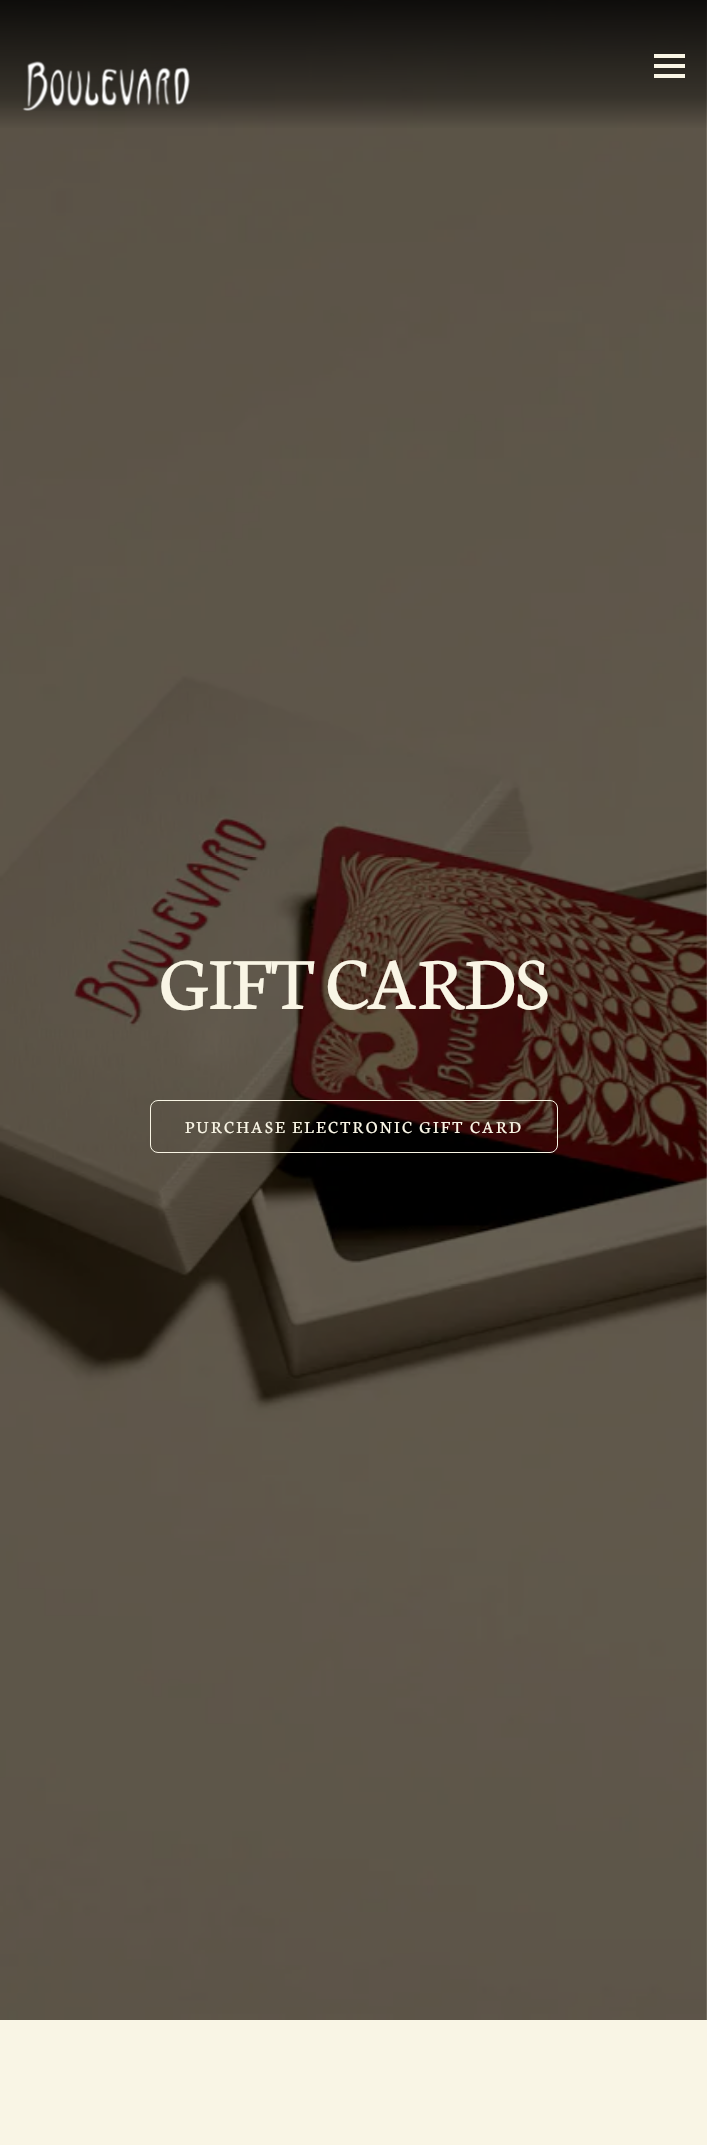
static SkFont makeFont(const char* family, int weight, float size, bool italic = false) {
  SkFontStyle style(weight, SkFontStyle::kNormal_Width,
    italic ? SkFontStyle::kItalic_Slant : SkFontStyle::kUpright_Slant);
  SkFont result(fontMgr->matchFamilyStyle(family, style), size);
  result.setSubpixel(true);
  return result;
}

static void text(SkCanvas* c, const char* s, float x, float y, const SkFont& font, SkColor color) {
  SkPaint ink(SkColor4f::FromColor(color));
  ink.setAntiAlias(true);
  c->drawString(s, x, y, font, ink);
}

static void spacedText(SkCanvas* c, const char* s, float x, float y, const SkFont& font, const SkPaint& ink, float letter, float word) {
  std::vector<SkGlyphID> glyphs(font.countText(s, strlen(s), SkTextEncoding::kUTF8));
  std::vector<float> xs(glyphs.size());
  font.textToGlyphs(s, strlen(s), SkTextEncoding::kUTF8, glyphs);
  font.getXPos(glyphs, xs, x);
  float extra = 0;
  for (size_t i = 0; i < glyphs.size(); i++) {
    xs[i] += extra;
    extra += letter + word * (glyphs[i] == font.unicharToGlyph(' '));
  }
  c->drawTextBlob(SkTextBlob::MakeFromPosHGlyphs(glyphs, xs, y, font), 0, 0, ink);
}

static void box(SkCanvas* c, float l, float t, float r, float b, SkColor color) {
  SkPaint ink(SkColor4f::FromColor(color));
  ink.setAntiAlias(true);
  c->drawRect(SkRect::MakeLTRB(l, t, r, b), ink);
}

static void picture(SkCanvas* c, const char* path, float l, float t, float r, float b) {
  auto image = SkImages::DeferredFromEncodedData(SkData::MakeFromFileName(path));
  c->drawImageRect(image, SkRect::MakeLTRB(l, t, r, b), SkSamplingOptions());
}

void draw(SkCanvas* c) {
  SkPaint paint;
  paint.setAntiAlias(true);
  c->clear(0xfff9f5e5);
  picture(c, "img_02.png", 0, 0, 707, 2020);
  {
    const SkColor colors[] = {0xd9000000, 0x66000000, 0x00000000};
    const float stops[] = {0, 0.75f, 1};
    const SkPoint ends[] = {{354, 0}, {354, 130}};
    paint.setShader(SkGradientShader::MakeLinear(ends, colors, stops, 3, SkTileMode::kClamp));
    paint.setAlpha(255);
  }
  c->drawRect(SkRect::MakeLTRB(0, 0, 707, 128), paint);
  picture(c, "img_01.png", 22, 61, 190, 111);
  box(c, 654, 54, 685, 58, 0xfff9f5e5);
  box(c, 654, 64, 685, 68, 0xfff9f5e5);
  box(c, 654, 74, 685, 78, 0xfff9f5e5);
  SkFont face1 = makeFont("Neuton", 400, 78.75f);
  text(c, "GIFT CARDS", 159, 1009, face1, 0xfff9f5e5);
  paint.setStyle(SkPaint::kStroke_Style);
  paint.setStrokeWidth(1);
  paint.setShader(nullptr);
  paint.setColor(0xfff9f5e5);
  c->drawRoundRect(SkRect::MakeLTRB(150.5f, 1100.5f, 557.5f, 1152.5f), 7.5f, 7.5f, paint);
  SkFont face2 = makeFont("Neuton", 400, 18);
  paint.setStyle(SkPaint::kFill_Style);
  spacedText(c, "PURCHASE ELECTRONIC GIFT CARD", 185, 1133, face2, paint, 2.5f, 0);
}
